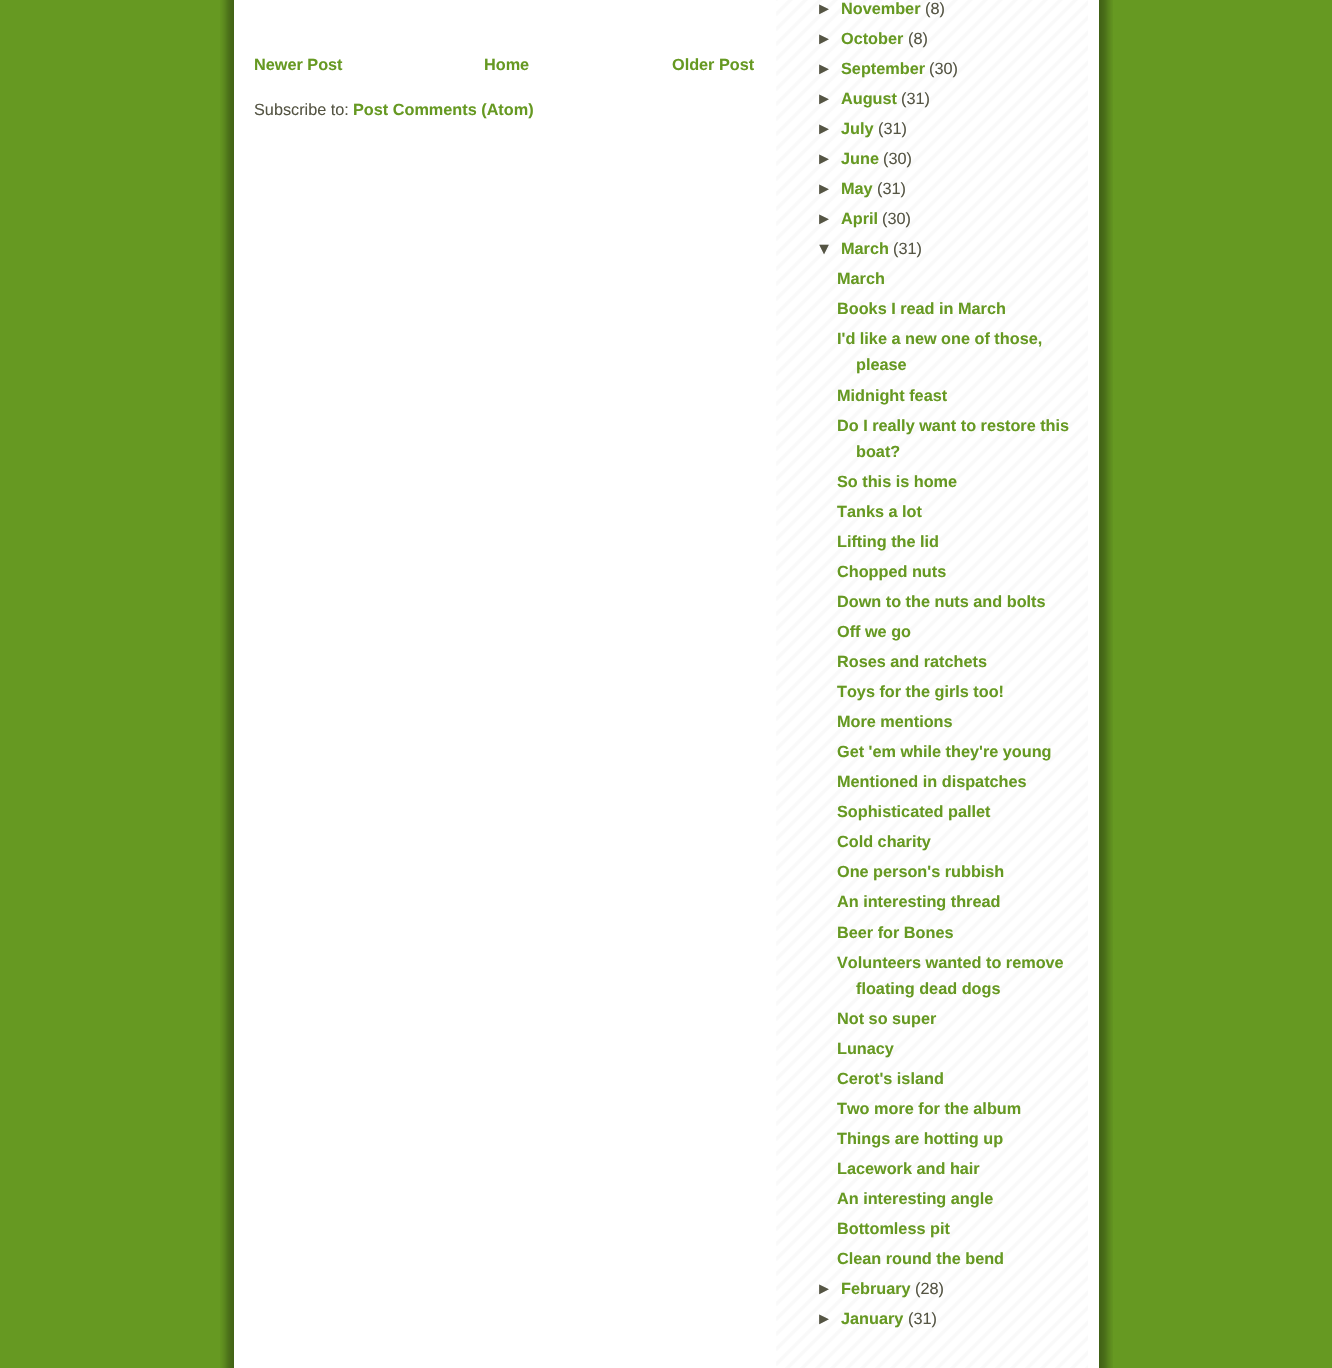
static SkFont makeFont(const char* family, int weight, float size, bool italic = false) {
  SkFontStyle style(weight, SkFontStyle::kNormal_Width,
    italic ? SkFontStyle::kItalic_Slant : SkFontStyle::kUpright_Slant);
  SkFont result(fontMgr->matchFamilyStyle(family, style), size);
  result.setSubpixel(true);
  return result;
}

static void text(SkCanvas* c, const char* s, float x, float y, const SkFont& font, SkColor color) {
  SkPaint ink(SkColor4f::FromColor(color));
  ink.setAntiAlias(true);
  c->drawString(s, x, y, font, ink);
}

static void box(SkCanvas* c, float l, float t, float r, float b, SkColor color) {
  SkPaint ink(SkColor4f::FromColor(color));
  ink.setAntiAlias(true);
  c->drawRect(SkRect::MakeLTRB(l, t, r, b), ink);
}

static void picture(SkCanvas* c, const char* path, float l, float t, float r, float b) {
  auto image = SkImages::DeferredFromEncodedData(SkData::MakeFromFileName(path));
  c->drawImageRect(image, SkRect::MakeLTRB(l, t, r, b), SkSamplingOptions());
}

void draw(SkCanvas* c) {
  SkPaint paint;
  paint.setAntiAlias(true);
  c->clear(0xff669922);
  picture(c, "img_01.png", 220, 0, 1113, 1368);
  box(c, 234, 0, 1099, 1368, 0xffffffff);
  picture(c, "img_02.png", 776, 0, 1088, 1368);
  SkFont face1 = makeFont("Liberation Sans", 700, 16.25f);
  text(c, "Newer Post", 254, 70, face1, 0xff669922);
  text(c, "Home", 484, 70, face1, 0xff669922);
  text(c, "Older Post", 672, 70, face1, 0xff669922);
  SkFont face2 = makeFont("Liberation Sans", 400, 16.25f);
  text(c, "Subscribe to:", 254, 115, face2, 0xff555544);
  text(c, "Post Comments (Atom)", 353, 115, face1, 0xff669922);
  text(c, "►", 816, 14, face1, 0xff555544);
  text(c, "November", 841, 14, face1, 0xff669922);
  text(c, "(8)", 925, 14, face2, 0xff555544);
  text(c, "►", 816, 44, face1, 0xff555544);
  text(c, "October", 841, 44, face1, 0xff669922);
  text(c, "(8)", 908, 44, face2, 0xff555544);
  text(c, "►", 816, 74, face1, 0xff555544);
  text(c, "September", 841, 74, face1, 0xff669922);
  text(c, "(30)", 929, 74, face2, 0xff555544);
  text(c, "►", 816, 104, face1, 0xff555544);
  text(c, "August", 841, 104, face1, 0xff669922);
  text(c, "(31)", 901, 104, face2, 0xff555544);
  text(c, "►", 816, 134, face1, 0xff555544);
  text(c, "July", 841, 134, face1, 0xff669922);
  text(c, "(31)", 878, 134, face2, 0xff555544);
  text(c, "►", 816, 164, face1, 0xff555544);
  text(c, "June", 841, 164, face1, 0xff669922);
  text(c, "(30)", 883, 164, face2, 0xff555544);
  text(c, "►", 816, 194, face1, 0xff555544);
  text(c, "May", 841, 194, face1, 0xff669922);
  text(c, "(31)", 877, 194, face2, 0xff555544);
  text(c, "►", 816, 224, face1, 0xff555544);
  text(c, "April", 841, 224, face1, 0xff669922);
  text(c, "(30)", 882, 224, face2, 0xff555544);
  text(c, "▼", 816, 254, face1, 0xff555544);
  text(c, "March", 841, 254, face1, 0xff669922);
  text(c, "(31)", 893, 254, face2, 0xff555544);
  text(c, "March", 837, 284, face1, 0xff669922);
  text(c, "Books I read in March", 837, 314, face1, 0xff669922);
  text(c, "I'd like a new one of those,", 837, 344, face1, 0xff669922);
  text(c, "please", 856, 370, face1, 0xff669922);
  text(c, "Midnight feast", 837, 401, face1, 0xff669922);
  text(c, "Do I really want to restore this", 837, 431, face1, 0xff669922);
  text(c, "boat?", 856, 457, face1, 0xff669922);
  text(c, "So this is home", 837, 487, face1, 0xff669922);
  text(c, "Tanks a lot", 837, 517, face1, 0xff669922);
  text(c, "Lifting the lid", 837, 547, face1, 0xff669922);
  text(c, "Chopped nuts", 837, 577, face1, 0xff669922);
  text(c, "Down to the nuts and bolts", 837, 607, face1, 0xff669922);
  text(c, "Off we go", 837, 637, face1, 0xff669922);
  text(c, "Roses and ratchets", 837, 667, face1, 0xff669922);
  text(c, "Toys for the girls too!", 837, 697, face1, 0xff669922);
  text(c, "More mentions", 837, 727, face1, 0xff669922);
  text(c, "Get 'em while they're young", 837, 757, face1, 0xff669922);
  text(c, "Mentioned in dispatches", 837, 787, face1, 0xff669922);
  text(c, "Sophisticated pallet", 837, 817, face1, 0xff669922);
  text(c, "Cold charity", 837, 847, face1, 0xff669922);
  text(c, "One person's rubbish", 837, 877, face1, 0xff669922);
  text(c, "An interesting thread", 837, 907, face1, 0xff669922);
  text(c, "Beer for Bones", 837, 938, face1, 0xff669922);
  text(c, "Volunteers wanted to remove", 837, 968, face1, 0xff669922);
  text(c, "floating dead dogs", 856, 994, face1, 0xff669922);
  text(c, "Not so super", 837, 1024, face1, 0xff669922);
  text(c, "Lunacy", 837, 1054, face1, 0xff669922);
  text(c, "Cerot's island", 837, 1084, face1, 0xff669922);
  text(c, "Two more for the album", 837, 1114, face1, 0xff669922);
  text(c, "Things are hotting up", 837, 1144, face1, 0xff669922);
  text(c, "Lacework and hair", 837, 1174, face1, 0xff669922);
  text(c, "An interesting angle", 837, 1204, face1, 0xff669922);
  text(c, "Bottomless pit", 837, 1234, face1, 0xff669922);
  text(c, "Clean round the bend", 837, 1264, face1, 0xff669922);
  text(c, "►", 816, 1294, face1, 0xff555544);
  text(c, "February", 841, 1294, face1, 0xff669922);
  text(c, "(28)", 915, 1294, face2, 0xff555544);
  text(c, "►", 816, 1324, face1, 0xff555544);
  text(c, "January", 841, 1324, face1, 0xff669922);
  text(c, "(31)", 908, 1324, face2, 0xff555544);
}
